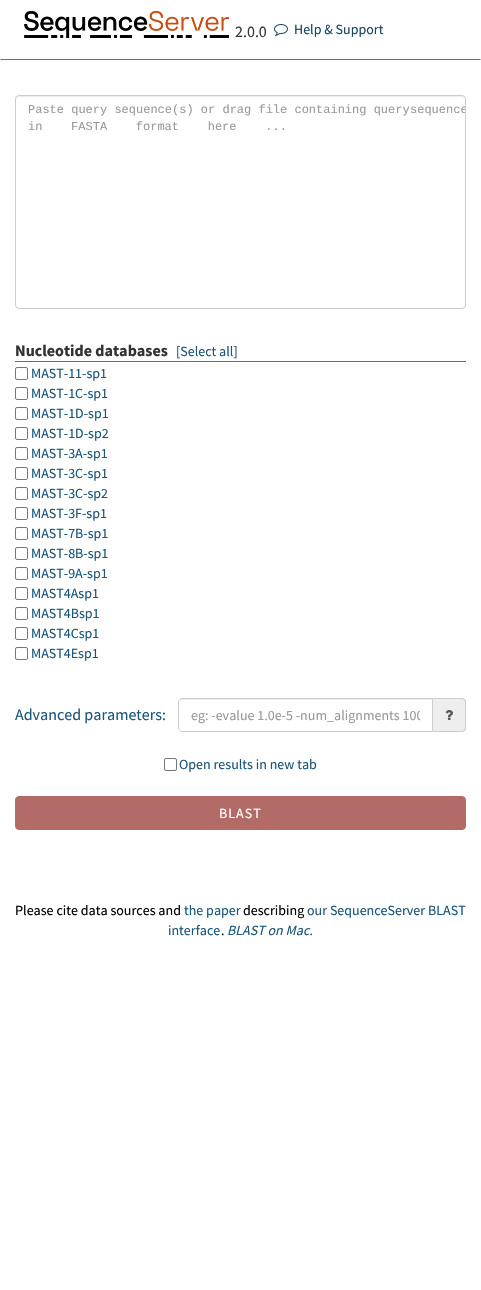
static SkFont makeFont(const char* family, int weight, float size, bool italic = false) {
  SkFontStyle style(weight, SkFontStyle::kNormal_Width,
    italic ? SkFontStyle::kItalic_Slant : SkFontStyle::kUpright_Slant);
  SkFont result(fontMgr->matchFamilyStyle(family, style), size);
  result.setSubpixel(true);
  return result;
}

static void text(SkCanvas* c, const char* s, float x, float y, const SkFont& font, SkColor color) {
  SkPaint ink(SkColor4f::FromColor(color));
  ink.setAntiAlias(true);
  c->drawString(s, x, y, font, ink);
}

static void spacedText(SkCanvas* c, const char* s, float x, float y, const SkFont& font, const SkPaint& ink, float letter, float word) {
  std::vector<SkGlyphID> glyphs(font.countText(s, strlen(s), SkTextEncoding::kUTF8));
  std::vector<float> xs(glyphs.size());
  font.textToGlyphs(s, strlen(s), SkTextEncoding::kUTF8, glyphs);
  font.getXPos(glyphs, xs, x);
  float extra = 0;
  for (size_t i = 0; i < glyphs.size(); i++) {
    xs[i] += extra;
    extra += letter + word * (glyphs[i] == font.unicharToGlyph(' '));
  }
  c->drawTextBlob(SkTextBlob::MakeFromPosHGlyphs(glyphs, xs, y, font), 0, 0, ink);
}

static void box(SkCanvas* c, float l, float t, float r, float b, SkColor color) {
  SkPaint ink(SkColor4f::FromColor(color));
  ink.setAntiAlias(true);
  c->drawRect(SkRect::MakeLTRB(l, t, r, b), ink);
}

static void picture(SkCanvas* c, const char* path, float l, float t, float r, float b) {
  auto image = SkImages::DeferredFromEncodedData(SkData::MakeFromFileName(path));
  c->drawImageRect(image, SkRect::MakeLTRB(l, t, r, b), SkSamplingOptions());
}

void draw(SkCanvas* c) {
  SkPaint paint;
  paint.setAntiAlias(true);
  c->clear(0xffffffff);
  paint.setColor(0xffc74f14);
  c->drawPath(SkPathBuilder().moveTo(481, 60).lineTo(0, 60).lineTo(1, 59).lineTo(480, 59).close().detach(), paint);
  picture(c, "img_01.png", 24, 11, 229, 38);
  SkFont face1 = makeFont("Source Sans Pro", 400, 16);
  text(c, "2.0.0", 235, 37, face1, 0xff333333);
  picture(c, "img_02.png", 274, 24, 288, 36);
  SkFont face2 = makeFont("Source Sans Pro", 400, 14);
  text(c, "Help & Support", 294, 34, face2, 0xff174465);
  paint.setColor(0xffececec);
  c->drawPath(SkPathBuilder().moveTo(19, 97).lineTo(462, 97).cubicTo(464, 97, 465, 98, 465, 100).cubicTo(465, 98, 464, 96, 462, 96).lineTo(18, 96).lineTo(16, 98).lineTo(16, 100).cubicTo(16, 98, 17, 97, 19, 97).close().detach(), paint);
  paint.setStyle(SkPaint::kStroke_Style);
  paint.setStrokeWidth(1);
  paint.setColor(0xffcccccc);
  c->drawRoundRect(SkRect::MakeLTRB(15.5f, 95.5f, 465.5f, 308.5f), 3.5f, 3.5f, paint);
  SkFont face3 = makeFont("Liberation Mono", 400, 12);
  text(c, "Paste query sequence(s) or drag file containing query", 28, 113, face3, 0xff999999);
  c->save();
  c->clipPath(SkPathBuilder().moveTo(19, 96).lineTo(462, 96).cubicTo(463.5f, 96, 465, 97.5f, 465, 99).lineTo(465, 305).cubicTo(465, 306.5f, 463.5f, 308, 462, 308).lineTo(19, 308).cubicTo(17.5f, 308, 16, 306.5f, 16, 305).lineTo(16, 99).cubicTo(16, 97.5f, 17.5f, 96, 19, 96).close().detach(), true);
  text(c, "sequence", 410, 113, face3, 0xff999999);
  c->restore();
  paint.setStyle(SkPaint::kFill_Style);
  paint.setColor(0xff999999);
  spacedText(c, "in FASTA format here ...", 28, 130, face3, paint, 0, 21.5f);
  box(c, 15, 361, 466, 362, 0xffc74f14);
  SkFont face4 = makeFont("Source Sans Pro", 700, 16);
  text(c, "Nucleotide databases", 15, 356, face4, 0xff333333);
  text(c, "[Select all]", 176, 356, face2, 0xff1b557a);
  paint.setStyle(SkPaint::kStroke_Style);
  paint.setColor(0xff767676);
  c->drawRoundRect(SkRect::MakeLTRB(15.5f, 367.5f, 27.5f, 379.5f), 1.5f, 1.5f, paint);
  text(c, "MAST-11-sp1", 31, 378, face2, 0xff1b557a);
  c->drawRoundRect(SkRect::MakeLTRB(15.5f, 387.5f, 27.5f, 399.5f), 1.5f, 1.5f, paint);
  text(c, "MAST-1C-sp1", 31, 398, face2, 0xff1b557a);
  c->drawRoundRect(SkRect::MakeLTRB(15.5f, 407.5f, 27.5f, 419.5f), 1.5f, 1.5f, paint);
  text(c, "MAST-1D-sp1", 31, 418, face2, 0xff1b557a);
  c->drawRoundRect(SkRect::MakeLTRB(15.5f, 427.5f, 27.5f, 439.5f), 1.5f, 1.5f, paint);
  text(c, "MAST-1D-sp2", 31, 438, face2, 0xff1b557a);
  c->drawRoundRect(SkRect::MakeLTRB(15.5f, 447.5f, 27.5f, 459.5f), 1.5f, 1.5f, paint);
  text(c, "MAST-3A-sp1", 31, 458, face2, 0xff1b557a);
  c->drawRoundRect(SkRect::MakeLTRB(15.5f, 467.5f, 27.5f, 479.5f), 1.5f, 1.5f, paint);
  text(c, "MAST-3C-sp1", 31, 478, face2, 0xff1b557a);
  c->drawRoundRect(SkRect::MakeLTRB(15.5f, 487.5f, 27.5f, 499.5f), 1.5f, 1.5f, paint);
  text(c, "MAST-3C-sp2", 31, 498, face2, 0xff1b557a);
  c->drawRoundRect(SkRect::MakeLTRB(15.5f, 507.5f, 27.5f, 519.5f), 1.5f, 1.5f, paint);
  text(c, "MAST-3F-sp1", 31, 518, face2, 0xff1b557a);
  c->drawRoundRect(SkRect::MakeLTRB(15.5f, 527.5f, 27.5f, 539.5f), 1.5f, 1.5f, paint);
  text(c, "MAST-7B-sp1", 31, 538, face2, 0xff1b557a);
  c->drawRoundRect(SkRect::MakeLTRB(15.5f, 547.5f, 27.5f, 559.5f), 1.5f, 1.5f, paint);
  text(c, "MAST-8B-sp1", 31, 558, face2, 0xff1b557a);
  c->drawRoundRect(SkRect::MakeLTRB(15.5f, 567.5f, 27.5f, 579.5f), 1.5f, 1.5f, paint);
  text(c, "MAST-9A-sp1", 31, 578, face2, 0xff1b557a);
  c->drawRoundRect(SkRect::MakeLTRB(15.5f, 587.5f, 27.5f, 599.5f), 1.5f, 1.5f, paint);
  text(c, "MAST4Asp1", 31, 598, face2, 0xff1b557a);
  c->drawRoundRect(SkRect::MakeLTRB(15.5f, 607.5f, 27.5f, 619.5f), 1.5f, 1.5f, paint);
  text(c, "MAST4Bsp1", 31, 618, face2, 0xff1b557a);
  c->drawRoundRect(SkRect::MakeLTRB(15.5f, 627.5f, 27.5f, 639.5f), 1.5f, 1.5f, paint);
  text(c, "MAST4Csp1", 31, 638, face2, 0xff1b557a);
  c->drawRoundRect(SkRect::MakeLTRB(15.5f, 647.5f, 27.5f, 659.5f), 1.5f, 1.5f, paint);
  text(c, "MAST4Esp1", 31, 658, face2, 0xff1b557a);
  text(c, "Advanced parameters:", 15, 720, face1, 0xff1b557a);
  paint.setStyle(SkPaint::kFill_Style);
  paint.setColor(0xffececec);
  c->drawPath(SkPathBuilder().moveTo(182, 700).lineTo(432, 700).lineTo(432, 699).lineTo(182, 699).cubicTo(180, 699, 179, 701, 179, 703).cubicTo(179, 701, 180, 700, 182, 700).close().detach(), paint);
  paint.setStyle(SkPaint::kStroke_Style);
  paint.setColor(0xffcccccc);
  c->drawPath(SkPathBuilder().moveTo(182, 698.5f).lineTo(432.5f, 698.5f).lineTo(432.5f, 731.5f).lineTo(182, 731.5f).cubicTo(180, 731.5f, 178.5f, 730, 178.5f, 728).lineTo(178.5f, 702).cubicTo(178.5f, 700, 180, 698.5f, 182, 698.5f).close().detach(), paint);
  c->save();
  c->clipRect(SkRect::MakeLTRB(191, 706, 420, 724));
  text(c, "eg: -evalue 1.0e-5 -num_alignments 100", 191, 720, face2, 0xff999999);
  c->restore();
  paint.setStyle(SkPaint::kFill_Style);
  paint.setColor(0xffeeeeee);
  c->drawPath(SkPathBuilder().moveTo(433, 698).lineTo(462, 698).cubicTo(464, 698, 466, 700, 466, 702).lineTo(466, 728).cubicTo(466, 730, 464, 732, 462, 732).lineTo(433, 732).close().detach(), paint);
  paint.setColor(0xffcccccc);
  c->drawPath(SkPathBuilder(SkPathFillType::kEvenOdd).moveTo(433, 698).lineTo(462, 698).cubicTo(464, 698, 466, 700, 466, 702).lineTo(466, 728).cubicTo(466, 730, 464, 732, 462, 732).lineTo(433, 732).close().moveTo(433, 699).lineTo(462, 699).cubicTo(463.5f, 699, 465, 700.5f, 465, 702).lineTo(465, 728).cubicTo(465, 729.5f, 463.5f, 731, 462, 731).lineTo(433, 731).close().detach(), paint);
  picture(c, "img_03.png", 445, 710, 453, 720);
  paint.setStyle(SkPaint::kStroke_Style);
  paint.setColor(0xff767676);
  c->drawRoundRect(SkRect::MakeLTRB(164.5f, 758.5f, 176.5f, 770.5f), 1.5f, 1.5f, paint);
  text(c, "Open results in new tab", 179, 769, face2, 0xff1b557a);
  paint.setStyle(SkPaint::kFill_Style);
  paint.setColor(0xffb26b66);
  c->drawRoundRect(SkRect::MakeLTRB(15.5f, 796.5f, 465.5f, 829.5f), 3.5f, 3.5f, paint);
  paint.setStyle(SkPaint::kStroke_Style);
  c->drawRoundRect(SkRect::MakeLTRB(15.5f, 796.5f, 465.5f, 829.5f), 3.5f, 3.5f, paint);
  paint.setStyle(SkPaint::kFill_Style);
  paint.setColor(0xffffffff);
  spacedText(c, "BLAST", 219, 818, face2, paint, 1, 0);
  text(c, "Please cite data sources and", 15, 915, face2, 0xff000000);
  text(c, "the paper", 184, 915, face2, 0xff1b557a);
  text(c, "describing", 243, 915, face2, 0xff000000);
  text(c, "our SequenceServer BLAST", 307, 915, face2, 0xff1b557a);
  text(c, "interface", 168, 935, face2, 0xff1b557a);
  text(c, ".", 221, 935, face2, 0xff000000);
  SkFont face5 = makeFont("Source Sans Pro", 400, 14, true);
  text(c, "BLAST on Mac.", 227, 935, face5, 0xff1b557a);
}
